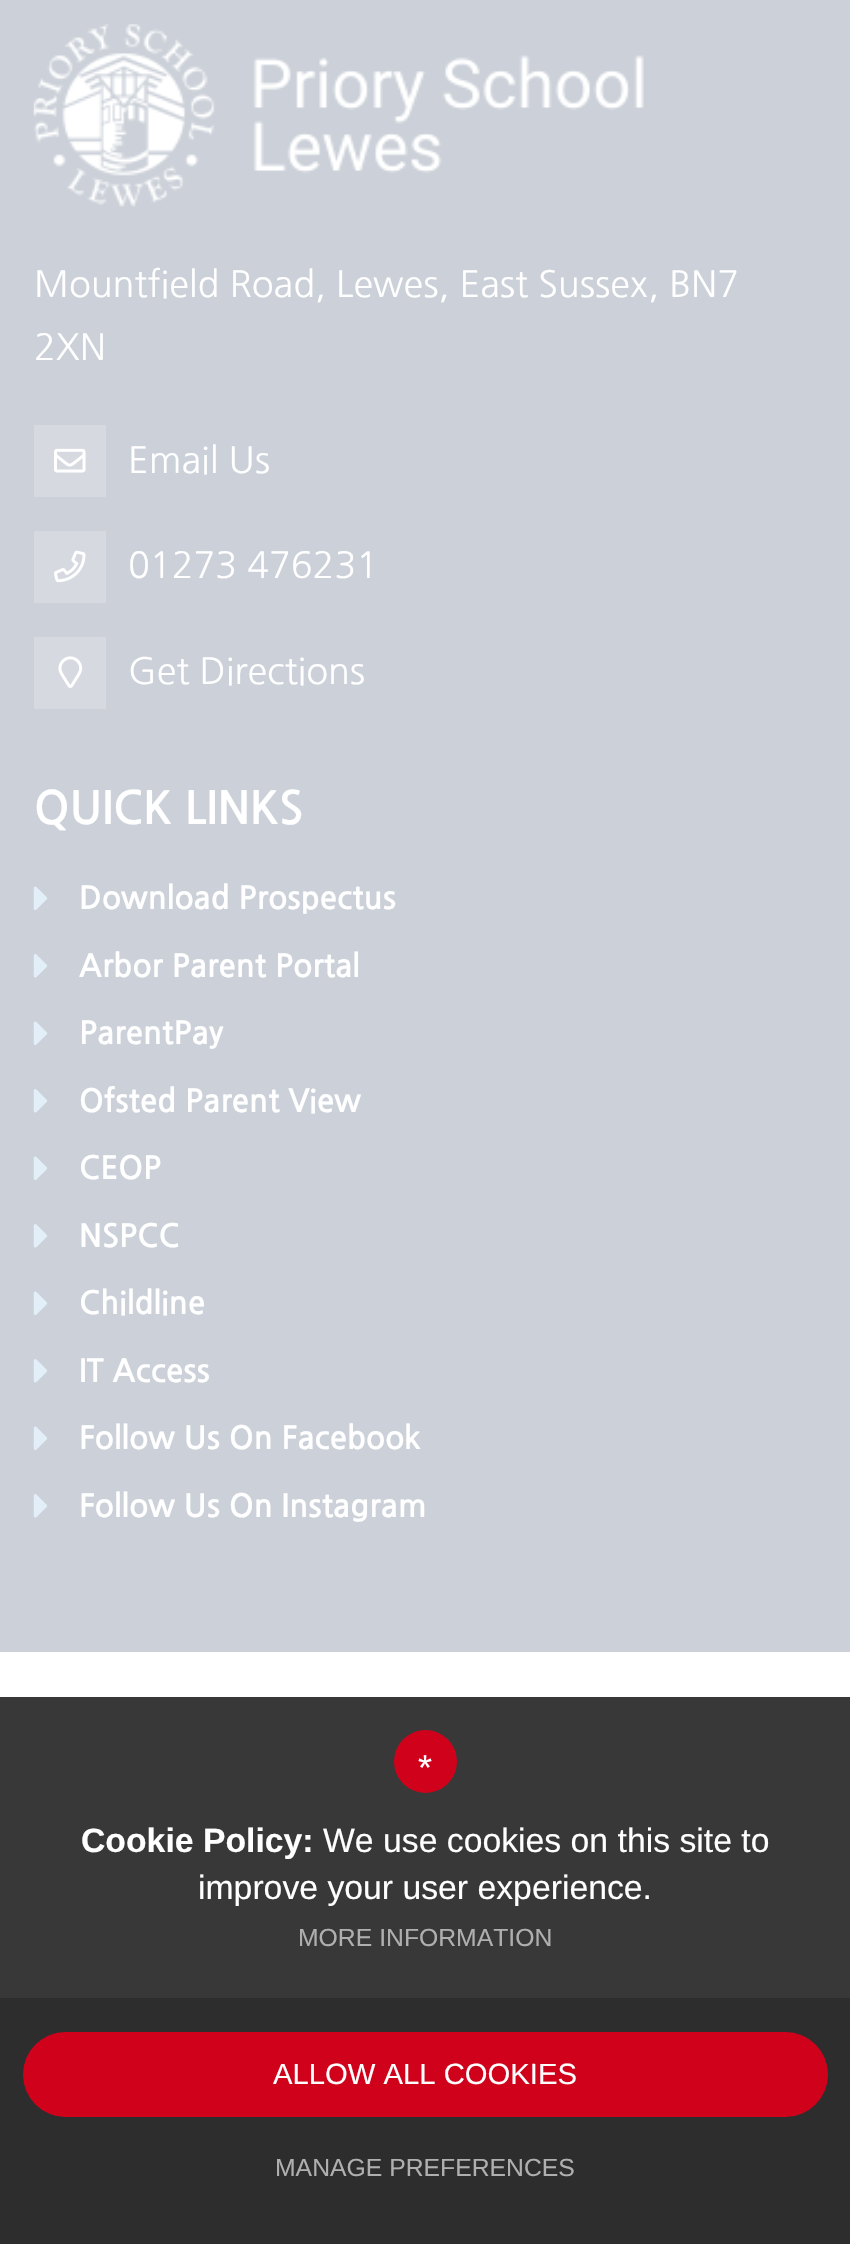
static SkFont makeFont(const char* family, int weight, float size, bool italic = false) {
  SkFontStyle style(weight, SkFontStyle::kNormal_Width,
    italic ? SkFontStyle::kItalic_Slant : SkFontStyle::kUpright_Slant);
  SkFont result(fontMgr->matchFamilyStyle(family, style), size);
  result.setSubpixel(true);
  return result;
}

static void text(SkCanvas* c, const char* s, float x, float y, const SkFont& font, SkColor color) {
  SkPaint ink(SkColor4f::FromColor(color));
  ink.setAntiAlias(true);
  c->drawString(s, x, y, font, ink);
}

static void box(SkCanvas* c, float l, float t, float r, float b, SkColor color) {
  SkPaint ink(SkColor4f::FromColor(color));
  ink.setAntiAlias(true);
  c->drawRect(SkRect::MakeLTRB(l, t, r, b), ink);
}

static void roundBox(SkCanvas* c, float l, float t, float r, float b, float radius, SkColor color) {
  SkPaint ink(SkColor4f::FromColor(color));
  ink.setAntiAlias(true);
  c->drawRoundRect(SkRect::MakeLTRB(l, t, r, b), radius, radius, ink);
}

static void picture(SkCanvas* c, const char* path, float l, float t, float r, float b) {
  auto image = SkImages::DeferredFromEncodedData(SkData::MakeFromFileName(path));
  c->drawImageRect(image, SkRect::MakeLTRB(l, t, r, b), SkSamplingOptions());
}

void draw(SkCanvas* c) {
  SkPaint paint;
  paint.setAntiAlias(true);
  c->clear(0xffffffff);
  box(c, 0, 0, 850, 1652, 0xffccd1d9);
  picture(c, "img_01.png", 33, 24, 644, 207);
  SkFont face1 = makeFont("NanumGothic", 400, 36);
  text(c, "Mountfield Road, Lewes, East Sussex, BN7", 34, 297, face1, 0xffffffff);
  text(c, "2XN", 34, 360, face1, 0xffffffff);
  box(c, 34, 425, 106, 497, 0xffd6dae0);
  picture(c, "img_02.png", 54, 448, 86, 473);
  text(c, "Email Us", 128, 473, face1, 0xffffffff);
  box(c, 34, 531, 106, 603, 0xffd6dae0);
  picture(c, "img_03.png", 54, 550, 86, 583);
  text(c, "01273 476231", 128, 578, face1, 0xffffffff);
  box(c, 34, 637, 106, 709, 0xffd6dae0);
  picture(c, "img_04.png", 58, 656, 83, 688);
  text(c, "Get Directions", 128, 684, face1, 0xffffffff);
  SkFont face2 = makeFont("NanumGothic", 700, 45);
  text(c, "QUICK LINKS", 34, 824, face2, 0xffffffff);
  picture(c, "img_05.png", 33, 886, 48, 910);
  SkFont face3 = makeFont("NanumGothic", 700, 31.5f);
  text(c, "Download Prospectus", 79, 909, face3, 0xffffffff);
  picture(c, "img_06.png", 33, 954, 48, 978);
  text(c, "Arbor Parent Portal", 79, 977, face3, 0xffffffff);
  picture(c, "img_05.png", 33, 1021, 48, 1045);
  text(c, "ParentPay", 79, 1044, face3, 0xffffffff);
  picture(c, "img_06.png", 33, 1089, 48, 1113);
  text(c, "Ofsted Parent View", 79, 1112, face3, 0xffffffff);
  picture(c, "img_05.png", 33, 1156, 48, 1180);
  text(c, "CEOP", 79, 1179, face3, 0xffffffff);
  picture(c, "img_06.png", 33, 1224, 48, 1248);
  text(c, "NSPCC", 79, 1247, face3, 0xffffffff);
  picture(c, "img_05.png", 33, 1291, 48, 1315);
  text(c, "Childline", 79, 1314, face3, 0xffffffff);
  picture(c, "img_06.png", 33, 1359, 48, 1383);
  text(c, "IT Access", 79, 1382, face3, 0xffffffff);
  picture(c, "img_05.png", 33, 1426, 48, 1450);
  text(c, "Follow Us On Facebook", 79, 1449, face3, 0xffffffff);
  picture(c, "img_06.png", 33, 1494, 48, 1518);
  text(c, "Follow Us On Instagram", 79, 1517, face3, 0xffffffff);
  box(c, 0, 1998, 850, 2244, 0xff2d2d2d);
  box(c, 0, 1697, 850, 1998, 0xff383838);
  paint.setColor(0xffd0011b);
  c->drawCircle(425.5f, 1761.5f, 31.5f, paint);
  SkFont face4 = makeFont("Liberation Sans", 400, 36);
  text(c, "*", 418, 1780, face4, 0xffffffff);
  SkFont face5 = makeFont("Liberation Sans", 700, 33.75f);
  text(c, "Cookie Policy:", 81, 1852, face5, 0xffffffff);
  SkFont face6 = makeFont("Liberation Sans", 400, 33.75f);
  text(c, "We use cookies on this site to", 323, 1852, face6, 0xffffffff);
  text(c, "improve your user experience.", 198, 1899, face6, 0xffffffff);
  SkFont face7 = makeFont("Liberation Sans", 400, 24.75f);
  text(c, "MORE INFORMATION", 298, 1946, face7, 0xffafafaf);
  roundBox(c, 23, 2032, 828, 2117, 42.5f, 0xffd0011b);
  SkFont face8 = makeFont("Liberation Sans", 400, 29.25f);
  text(c, "ALLOW ALL COOKIES", 273, 2084, face8, 0xffffffff);
  text(c, "MANAGE PREFERENCES", 275, 2176, face7, 0xffafafaf);
}
